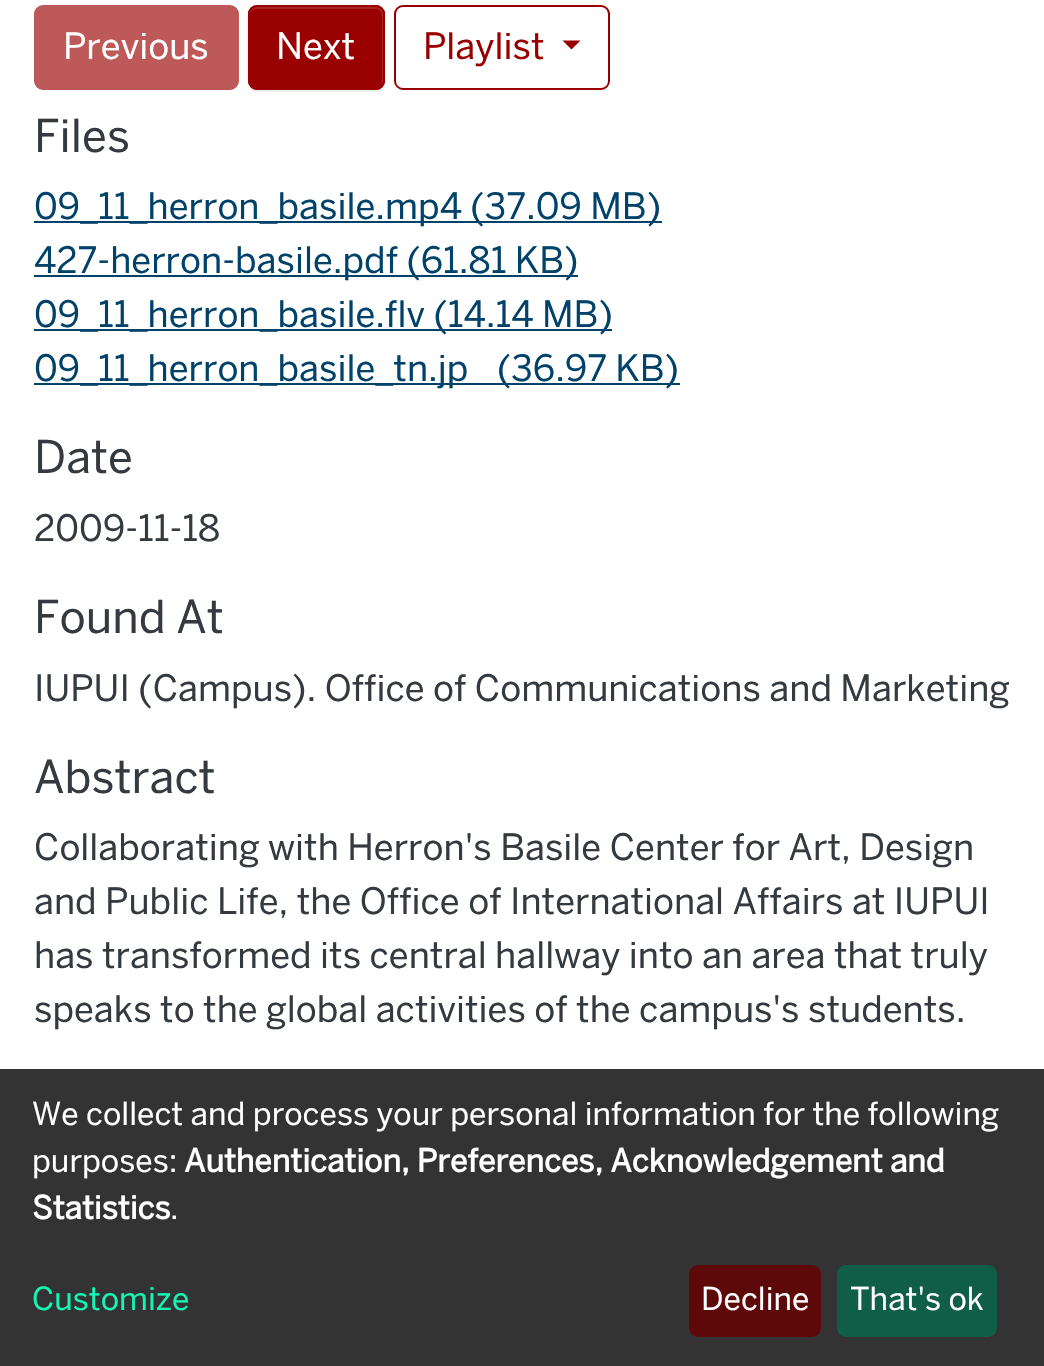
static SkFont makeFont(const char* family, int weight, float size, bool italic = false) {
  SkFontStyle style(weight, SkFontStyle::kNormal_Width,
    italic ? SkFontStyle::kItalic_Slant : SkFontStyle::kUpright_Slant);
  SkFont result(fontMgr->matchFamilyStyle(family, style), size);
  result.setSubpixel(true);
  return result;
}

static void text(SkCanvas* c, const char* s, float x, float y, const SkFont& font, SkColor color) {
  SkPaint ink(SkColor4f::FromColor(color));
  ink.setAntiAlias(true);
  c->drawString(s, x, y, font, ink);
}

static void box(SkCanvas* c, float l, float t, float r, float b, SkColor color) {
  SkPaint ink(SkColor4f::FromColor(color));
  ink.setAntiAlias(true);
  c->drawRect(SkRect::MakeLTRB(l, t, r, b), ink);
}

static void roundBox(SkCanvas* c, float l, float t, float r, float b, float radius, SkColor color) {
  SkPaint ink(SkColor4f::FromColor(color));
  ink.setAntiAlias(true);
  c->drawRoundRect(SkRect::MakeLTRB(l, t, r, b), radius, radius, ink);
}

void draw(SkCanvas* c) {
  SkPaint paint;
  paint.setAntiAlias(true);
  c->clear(0xffffffff);
  paint.setColor(0xffbd5959);
  c->drawRoundRect(SkRect::MakeLTRB(35, 6, 238, 89), 8, 8, paint);
  paint.setStyle(SkPaint::kStroke_Style);
  paint.setStrokeWidth(2);
  c->drawRoundRect(SkRect::MakeLTRB(35, 6, 238, 89), 8, 8, paint);
  SkFont face1 = makeFont("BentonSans", 400, 36);
  text(c, "Previous", 63, 59, face1, 0xffffffff);
  paint.setStyle(SkPaint::kFill_Style);
  paint.setColor(0x12000000);
  paint.setMaskFilter(SkMaskFilter::MakeBlur(kNormal_SkBlurStyle, 1));
  c->drawRoundRect(SkRect::MakeLTRB(248, 7, 385, 92), 9, 9, paint);
  paint.setMaskFilter(nullptr);
  roundBox(c, 248, 5, 385, 90, 9, 0xff990000);
  paint.setColor(0xffa82626);
  c->drawPath(SkPathBuilder().moveTo(256, 9).lineTo(376, 9).cubicTo(384, 9, 382, 24, 382, 27).lineTo(382, 85).cubicTo(383, 84, 383, 82, 383, 81).lineTo(383, 14).cubicTo(383, 10, 380, 7, 376, 7).lineTo(257, 7).cubicTo(253, 7, 250, 10, 250, 14).lineTo(250, 16).cubicTo(250, 12, 253, 9, 256, 9).close().detach(), paint);
  paint.setStyle(SkPaint::kStroke_Style);
  paint.setColor(0xff990000);
  c->drawRoundRect(SkRect::MakeLTRB(249, 6, 384, 89), 8, 8, paint);
  text(c, "Next", 276, 59, face1, 0xffffffff);
  c->drawRoundRect(SkRect::MakeLTRB(395, 6, 609, 89), 8, 8, paint);
  text(c, "Playlist", 423, 59, face1, 0xff990000);
  paint.setStyle(SkPaint::kFill_Style);
  c->drawPath(SkPathBuilder().moveTo(562.5f, 40.5f).lineTo(580.5f, 40.5f).lineTo(571.5f, 49.5f).close().detach(), paint);
  SkFont face2 = makeFont("BentonSans", 400, 45);
  text(c, "Files", 34, 152, face2, 0xff343a40);
  box(c, 34, 221, 662, 223, 0xff01426a);
  text(c, "09_11_herron_basile.mp4 (37.09 MB)", 34, 219, face1, 0xff01426a);
  box(c, 34, 275, 578, 277, 0xff01426a);
  text(c, "427-herron-basile.pdf (61.81 KB)", 34, 273, face1, 0xff01426a);
  box(c, 34, 329, 612, 331, 0xff01426a);
  text(c, "09_11_herron_basile.flv (14.14 MB)", 34, 327, face1, 0xff01426a);
  box(c, 34, 383, 680, 385, 0xff01426a);
  text(c, "09_11_herron_basile_tn.jp", 34, 381, face1, 0xff01426a);
  text(c, "(36.97 KB)", 497, 381, face1, 0xff01426a);
  text(c, "Date", 34, 473, face2, 0xff343a40);
  text(c, "2009-11-18", 34, 541, face1, 0xff343a40);
  text(c, "Found At", 34, 633, face2, 0xff343a40);
  text(c, "IUPUI (Campus). Office of Communications and Marketing", 34, 701, face1, 0xff343a40);
  text(c, "Abstract", 34, 793, face2, 0xff343a40);
  text(c, "Collaborating with Herron's Basile Center for Art, Design", 34, 860, face1, 0xff343a40);
  text(c, "and Public Life, the Office of International Affairs at IUPUI", 34, 914, face1, 0xff343a40);
  text(c, "has transformed its central hallway into an area that truly", 34, 968, face1, 0xff343a40);
  text(c, "speaks to the global activities of the campus's students.", 34, 1022, face1, 0xff343a40);
  box(c, 0, 1069, 1044, 1366, 0xff333333);
  SkFont face3 = makeFont("BentonSans", 400, 31.5f);
  text(c, "We collect and process your personal information for the following", 32, 1125, face3, 0xffffffff);
  text(c, "purposes:", 32, 1172, face3, 0xffffffff);
  SkFont face4 = makeFont("BentonSans", 700, 31.5f);
  text(c, "Authentication, Preferences, Acknowledgement and", 184, 1172, face4, 0xffffffff);
  text(c, "Statistics", 32, 1219, face4, 0xffffffff);
  text(c, ".", 170, 1219, face3, 0xffffffff);
  text(c, "Customize", 32, 1310, face3, 0xff13f7b3);
  roundBox(c, 689, 1265, 821, 1337, 9, 0xff5e0909);
  text(c, "Decline", 701, 1310, face3, 0xffffffff);
  roundBox(c, 837, 1265, 997, 1337, 9, 0xff105e47);
  text(c, "That's ok", 850, 1310, face3, 0xffffffff);
}
